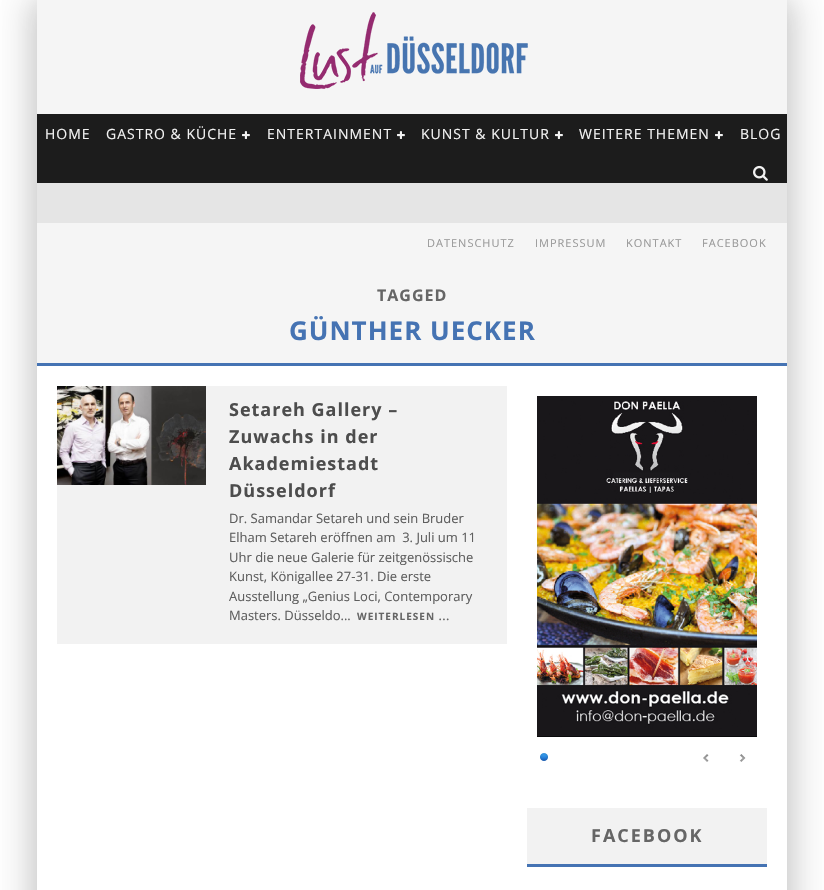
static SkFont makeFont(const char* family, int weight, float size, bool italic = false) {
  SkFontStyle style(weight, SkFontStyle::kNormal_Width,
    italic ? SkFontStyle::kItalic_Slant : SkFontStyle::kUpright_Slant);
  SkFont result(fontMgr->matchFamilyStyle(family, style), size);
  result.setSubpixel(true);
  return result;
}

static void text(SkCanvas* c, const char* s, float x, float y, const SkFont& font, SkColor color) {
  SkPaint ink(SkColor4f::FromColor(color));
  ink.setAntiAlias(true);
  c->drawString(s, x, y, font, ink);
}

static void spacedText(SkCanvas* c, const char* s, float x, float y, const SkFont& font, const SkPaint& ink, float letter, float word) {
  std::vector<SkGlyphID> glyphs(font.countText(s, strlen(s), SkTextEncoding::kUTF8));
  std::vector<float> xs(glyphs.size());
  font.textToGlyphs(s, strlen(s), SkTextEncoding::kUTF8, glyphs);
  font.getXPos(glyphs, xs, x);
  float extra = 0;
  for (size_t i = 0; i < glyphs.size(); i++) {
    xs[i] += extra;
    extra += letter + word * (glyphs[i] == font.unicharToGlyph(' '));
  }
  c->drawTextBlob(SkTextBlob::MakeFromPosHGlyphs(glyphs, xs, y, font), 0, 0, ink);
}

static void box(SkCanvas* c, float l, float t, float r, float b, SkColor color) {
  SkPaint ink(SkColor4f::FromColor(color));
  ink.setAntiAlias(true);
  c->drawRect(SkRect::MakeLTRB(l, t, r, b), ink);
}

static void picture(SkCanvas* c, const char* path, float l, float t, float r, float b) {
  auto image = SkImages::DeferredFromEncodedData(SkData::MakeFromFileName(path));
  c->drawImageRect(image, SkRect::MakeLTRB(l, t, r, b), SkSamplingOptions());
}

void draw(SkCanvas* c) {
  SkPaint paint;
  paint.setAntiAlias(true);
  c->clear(0xffffffff);
  c->save();
  c->clipPath(SkPathBuilder(SkPathFillType::kEvenOdd).moveTo(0, 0).lineTo(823, 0).lineTo(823, 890).lineTo(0, 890).close().moveTo(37, 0).lineTo(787, 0).lineTo(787, 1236).lineTo(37, 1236).close().detach(), true);
  paint.setColor(0x26000000);
  paint.setMaskFilter(SkMaskFilter::MakeBlur(kNormal_SkBlurStyle, 15));
  c->drawRect(SkRect::MakeLTRB(27, 0, 777, 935), paint);
  paint.setMaskFilter(nullptr);
  c->restore();
  c->save();
  c->clipPath(SkPathBuilder(SkPathFillType::kEvenOdd).moveTo(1, 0).lineTo(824, 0).lineTo(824, 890).lineTo(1, 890).close().moveTo(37, 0).lineTo(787, 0).lineTo(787, 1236).lineTo(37, 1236).close().detach(), true);
  paint.setMaskFilter(SkMaskFilter::MakeBlur(kNormal_SkBlurStyle, 15));
  c->drawRect(SkRect::MakeLTRB(47, 0, 797, 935), paint);
  paint.setMaskFilter(nullptr);
  c->restore();
  box(c, 37, 0, 787, 363, 0xfff5f5f5);
  picture(c, "img_01.png", 300, 12, 528, 89);
  box(c, 37, 114, 787, 183, 0xff1c1c1c);
  SkFont face1 = makeFont("Open Sans", 400, 14);
  paint.setColor(0xfff2f2f2);
  spacedText(c, "HOME", 45, 139, face1, paint, 1, 0);
  spacedText(c, "GASTRO & KÜCHE", 106, 139, face1, paint, 1, 0);
  picture(c, "img_02.png", 242, 131, 250, 139);
  spacedText(c, "ENTERTAINMENT", 267, 139, face1, paint, 1, 0);
  picture(c, "img_02.png", 397, 131, 405, 139);
  spacedText(c, "KUNST & KULTUR", 421, 139, face1, paint, 1, 0);
  picture(c, "img_02.png", 555, 131, 563, 139);
  spacedText(c, "WEITERE THEMEN", 579, 139, face1, paint, 1, 0);
  picture(c, "img_02.png", 715, 131, 723, 139);
  spacedText(c, "BLOG", 740, 139, face1, paint, 1, 0);
  picture(c, "img_03.png", 753, 165, 768, 181);
  box(c, 37, 183, 787, 223, 0xffe5e5e5);
  SkFont face2 = makeFont("Open Sans", 400, 11);
  paint.setColor(0xff999999);
  spacedText(c, "DATENSCHUTZ", 427, 247, face2, paint, 1, 0);
  spacedText(c, "IMPRESSUM", 535, 247, face2, paint, 1, 0);
  spacedText(c, "KONTAKT", 626, 247, face2, paint, 1, 0);
  spacedText(c, "FACEBOOK", 702, 247, face2, paint, 1, 0);
  box(c, 37, 363, 787, 366, 0xff4573b3);
  SkFont face3 = makeFont("Open Sans", 700, 16);
  paint.setColor(0xff666666);
  spacedText(c, "TAGGED", 377, 301, face3, paint, 1, 0);
  SkFont face4 = makeFont("Open Sans", 700, 26);
  paint.setColor(0xff4573b3);
  spacedText(c, "GÜNTHER UECKER", 289, 340, face4, paint, 1, 0);
  box(c, 57, 386, 507, 644, 0xfff2f2f2);
  picture(c, "img_04.png", 57, 386, 206, 485);
  SkFont face5 = makeFont("Open Sans", 700, 18);
  paint.setColor(0xff4d4d4d);
  spacedText(c, "Setareh Gallery –", 229, 416, face5, paint, 1, 0);
  spacedText(c, "Zuwachs in der", 229, 443, face5, paint, 1, 0);
  spacedText(c, "Akademiestadt", 229, 470, face5, paint, 1, 0);
  spacedText(c, "Düsseldorf", 229, 497, face5, paint, 1, 0);
  SkFont face6 = makeFont("Open Sans", 400, 13);
  text(c, "Dr. Samandar Setareh und sein Bruder", 229, 523, face6, 0xff5e5e5e);
  text(c, "Elham Setareh eröffnen am  3. Juli um 11", 229, 542, face6, 0xff5e5e5e);
  text(c, "Uhr die neue Galerie für zeitgenössische", 229, 562, face6, 0xff5e5e5e);
  text(c, "Kunst, Königallee 27-31. Die erste", 229, 581, face6, 0xff5e5e5e);
  text(c, "Ausstellung „Genius Loci, Contemporary", 229, 601, face6, 0xff5e5e5e);
  text(c, "Masters. Düsseldo...", 229, 620, face6, 0xff5e5e5e);
  SkFont face7 = makeFont("Open Sans", 700, 10);
  paint.setColor(0xff666666);
  spacedText(c, "WEITERLESEN ...", 357, 620, face7, paint, 1, 0);
  picture(c, "img_05.png", 537, 396, 757, 737);
  picture(c, "img_06.png", 703, 754, 709, 762);
  picture(c, "img_07.png", 739, 754, 746, 762);
  picture(c, "img_08.png", 540, 753, 548, 761);
  box(c, 527, 808, 767, 864, 0xfff2f2f2);
  box(c, 527, 864, 767, 867, 0xff4573b3);
  spacedText(c, "FACEBOOK", 591, 842, face5, paint, 2, 0);
}
